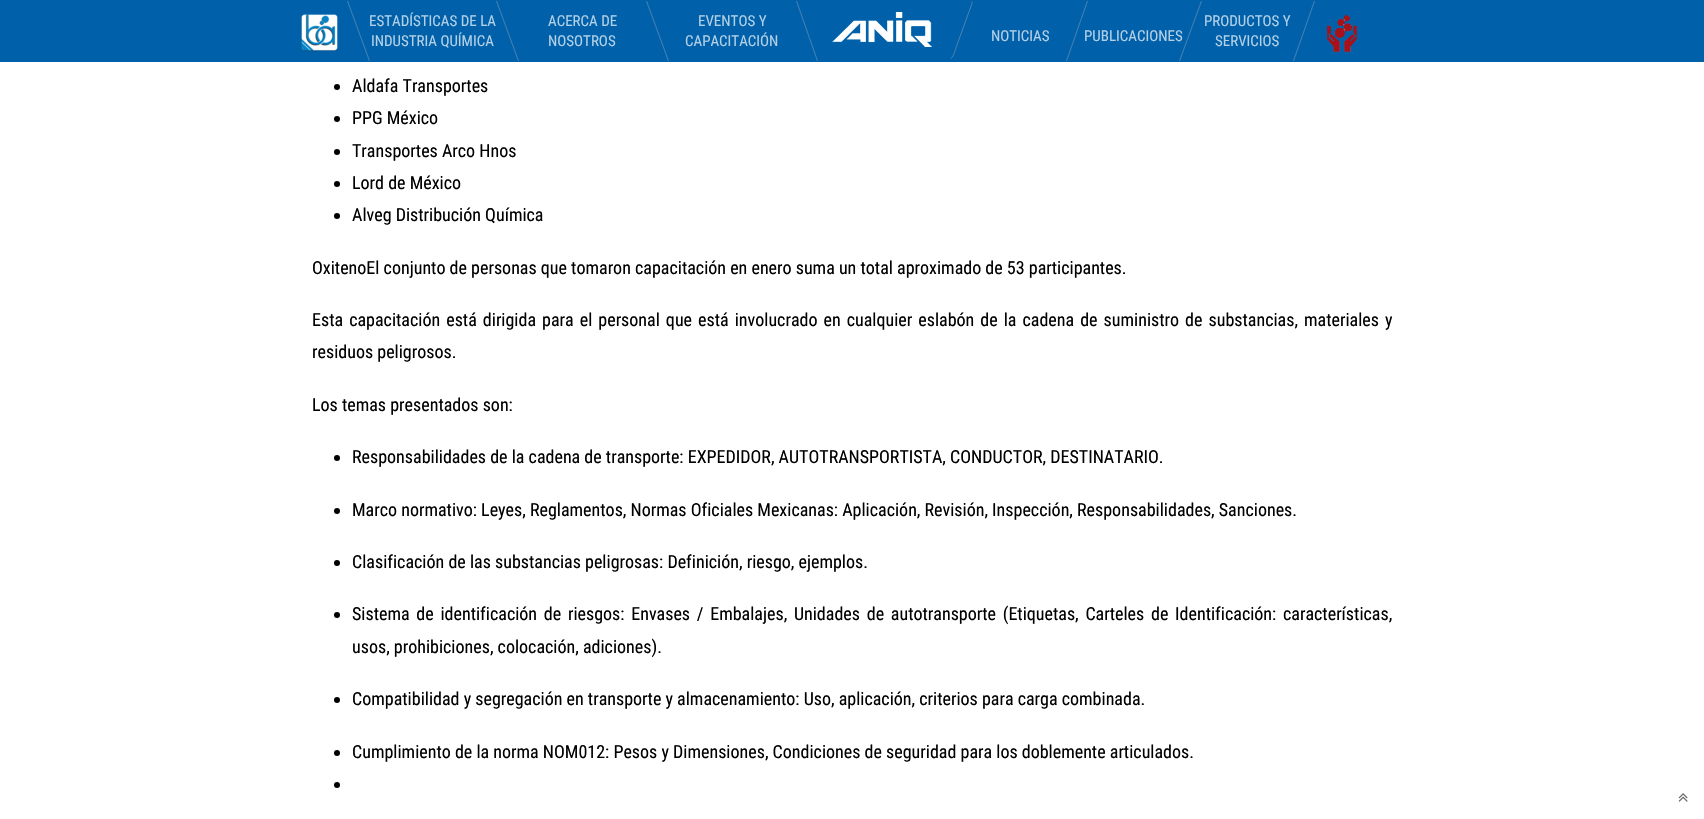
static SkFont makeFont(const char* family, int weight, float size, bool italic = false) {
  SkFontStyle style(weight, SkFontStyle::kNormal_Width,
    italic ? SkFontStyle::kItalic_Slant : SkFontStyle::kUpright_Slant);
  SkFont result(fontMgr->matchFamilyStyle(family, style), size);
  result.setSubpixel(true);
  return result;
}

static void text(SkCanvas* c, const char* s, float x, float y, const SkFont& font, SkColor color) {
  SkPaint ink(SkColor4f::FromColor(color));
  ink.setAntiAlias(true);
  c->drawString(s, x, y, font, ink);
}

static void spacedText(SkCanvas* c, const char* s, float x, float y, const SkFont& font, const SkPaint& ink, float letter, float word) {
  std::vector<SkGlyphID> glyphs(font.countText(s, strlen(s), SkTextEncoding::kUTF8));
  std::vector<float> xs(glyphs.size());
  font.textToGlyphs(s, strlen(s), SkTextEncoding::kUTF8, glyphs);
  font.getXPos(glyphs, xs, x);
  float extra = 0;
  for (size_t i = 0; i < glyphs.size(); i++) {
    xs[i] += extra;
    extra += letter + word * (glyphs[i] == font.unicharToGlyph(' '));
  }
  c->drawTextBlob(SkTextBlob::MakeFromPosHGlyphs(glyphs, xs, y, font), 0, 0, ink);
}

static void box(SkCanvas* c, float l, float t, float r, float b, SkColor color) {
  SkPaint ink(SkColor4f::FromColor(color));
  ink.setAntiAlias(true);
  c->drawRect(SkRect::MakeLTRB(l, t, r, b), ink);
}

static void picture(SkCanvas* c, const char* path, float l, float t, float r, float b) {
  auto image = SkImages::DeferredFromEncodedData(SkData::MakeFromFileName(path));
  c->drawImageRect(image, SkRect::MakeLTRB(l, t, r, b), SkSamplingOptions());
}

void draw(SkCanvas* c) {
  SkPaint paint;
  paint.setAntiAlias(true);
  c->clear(0xffffffff);
  box(c, 0, 0, 1704, 62, 0xff0061aa);
  picture(c, "img_01.png", 301, 14, 338, 52);
  paint.setColor(0xff4682b4);
  c->drawPath(SkPathBuilder().moveTo(496, 1).lineTo(497, 1).lineTo(519, 61).lineTo(518, 61).close().detach(), paint);
  c->drawPath(SkPathBuilder().moveTo(347, 1).lineTo(348, 1).lineTo(370, 61).lineTo(369, 61).close().detach(), paint);
  SkFont face1 = makeFont("Roboto Condensed", 400, 15);
  text(c, "ESTADÍSTICAS DE LA", 369, 26, face1, 0xffb3d0e6);
  text(c, "INDUSTRIA QUÍMICA", 371, 46, face1, 0xffb3d0e6);
  c->drawPath(SkPathBuilder().moveTo(646, 1).lineTo(647, 1).lineTo(669, 61).lineTo(668, 61).close().detach(), paint);
  text(c, "ACERCA DE", 548, 26, face1, 0xffb3d0e6);
  text(c, "NOSOTROS", 548, 46, face1, 0xffb3d0e6);
  c->drawPath(SkPathBuilder().moveTo(796, 1).lineTo(797, 1).lineTo(818, 61).lineTo(817, 61).close().detach(), paint);
  text(c, "EVENTOS Y", 698, 26, face1, 0xffb3d0e6);
  text(c, "CAPACITACIÓN", 685, 46, face1, 0xffb3d0e6);
  paint.setStyle(SkPaint::kStroke_Style);
  paint.setStrokeWidth(1);
  c->drawPath(SkPathBuilder().moveTo(972, 1.5f).lineTo(972, 3.5f).lineTo(956, 47.5f).cubicTo(955.5f, 49.5f, 954, 56, 951, 58.5f).detach(), paint);
  paint.setStyle(SkPaint::kFill_Style);
  c->drawPath(SkPathBuilder().moveTo(1087, 1).lineTo(1088, 1).lineTo(1067, 61).lineTo(1066, 61).close().detach(), paint);
  text(c, "NOTICIAS", 991, 41, face1, 0xffb3d0e6);
  c->drawPath(SkPathBuilder().moveTo(1201, 1).lineTo(1202, 1).lineTo(1180, 61).lineTo(1179, 61).close().detach(), paint);
  text(c, "PUBLICACIONES", 1084, 41, face1, 0xffb3d0e6);
  c->drawPath(SkPathBuilder().moveTo(1314, 1).lineTo(1315, 1).lineTo(1294, 61).lineTo(1293, 61).close().detach(), paint);
  text(c, "PRODUCTOS Y", 1204, 26, face1, 0xffb3d0e6);
  text(c, "SERVICIOS", 1215, 46, face1, 0xffb3d0e6);
  picture(c, "img_02.png", 1327, 15, 1357, 52);
  picture(c, "img_03.png", 832, 12, 932, 47);
  paint.setColor(0xff000000);
  c->drawCircle(337, 87, 3, paint);
  SkFont face2 = makeFont("Roboto Condensed", 400, 18);
  text(c, "Aldafa Transportes", 352, 92, face2, 0xff000000);
  c->drawCircle(337, 119, 3, paint);
  text(c, "PPG México", 352, 124, face2, 0xff000000);
  c->drawCircle(337, 152, 3, paint);
  text(c, "Transportes Arco Hnos", 352, 157, face2, 0xff000000);
  c->drawCircle(337, 184, 3, paint);
  text(c, "Lord de México", 352, 189, face2, 0xff000000);
  c->drawCircle(337, 216, 3, paint);
  text(c, "Alveg Distribución Química", 352, 221, face2, 0xff000000);
  text(c, "OxitenoEl conjunto de personas que tomaron capacitación en enero suma un total aproximado de 53 participantes.", 312, 274, face2, 0xff000000);
  spacedText(c, "Esta capacitación está dirigida para el personal que está involucrado en cualquier eslabón de la cadena de suministro de substancias, materiales y", 312, 326, face2, paint, 0, 1.9f);
  text(c, "residuos peligrosos.", 312, 358, face2, 0xff000000);
  text(c, "Los temas presentados son:", 312, 411, face2, 0xff000000);
  c->drawCircle(337, 458, 3, paint);
  text(c, "Responsabilidades de la cadena de transporte: EXPEDIDOR, AUTOTRANSPORTISTA, CONDUCTOR, DESTINATARIO.", 352, 463, face2, 0xff000000);
  c->drawCircle(337, 511, 3, paint);
  text(c, "Marco normativo: Leyes, Reglamentos, Normas Oficiales Mexicanas: Aplicación, Revisión, Inspección, Responsabilidades, Sanciones.", 352, 516, face2, 0xff000000);
  c->drawCircle(337, 563, 3, paint);
  text(c, "Clasificación de las substancias peligrosas: Definición, riesgo, ejemplos.", 352, 568, face2, 0xff000000);
  c->drawCircle(337, 615, 3, paint);
  spacedText(c, "Sistema de identificación de riesgos: Envases / Embalajes, Unidades de autotransporte (Etiquetas, Carteles de Identificación: características,", 352, 620, face2, paint, 0, 2.6f);
  text(c, "usos, prohibiciones, colocación, adiciones).", 352, 653, face2, 0xff000000);
  c->drawCircle(337, 700, 3, paint);
  text(c, "Compatibilidad y segregación en transporte y almacenamiento: Uso, aplicación, criterios para carga combinada.", 352, 705, face2, 0xff000000);
  c->drawCircle(337, 753, 3, paint);
  text(c, "Cumplimiento de la norma NOM012: Pesos y Dimensiones, Condiciones de seguridad para los doblemente articulados.", 352, 758, face2, 0xff000000);
  c->drawCircle(337, 785, 3, paint);
  picture(c, "img_04.png", 1678, 793, 1688, 802);
}
